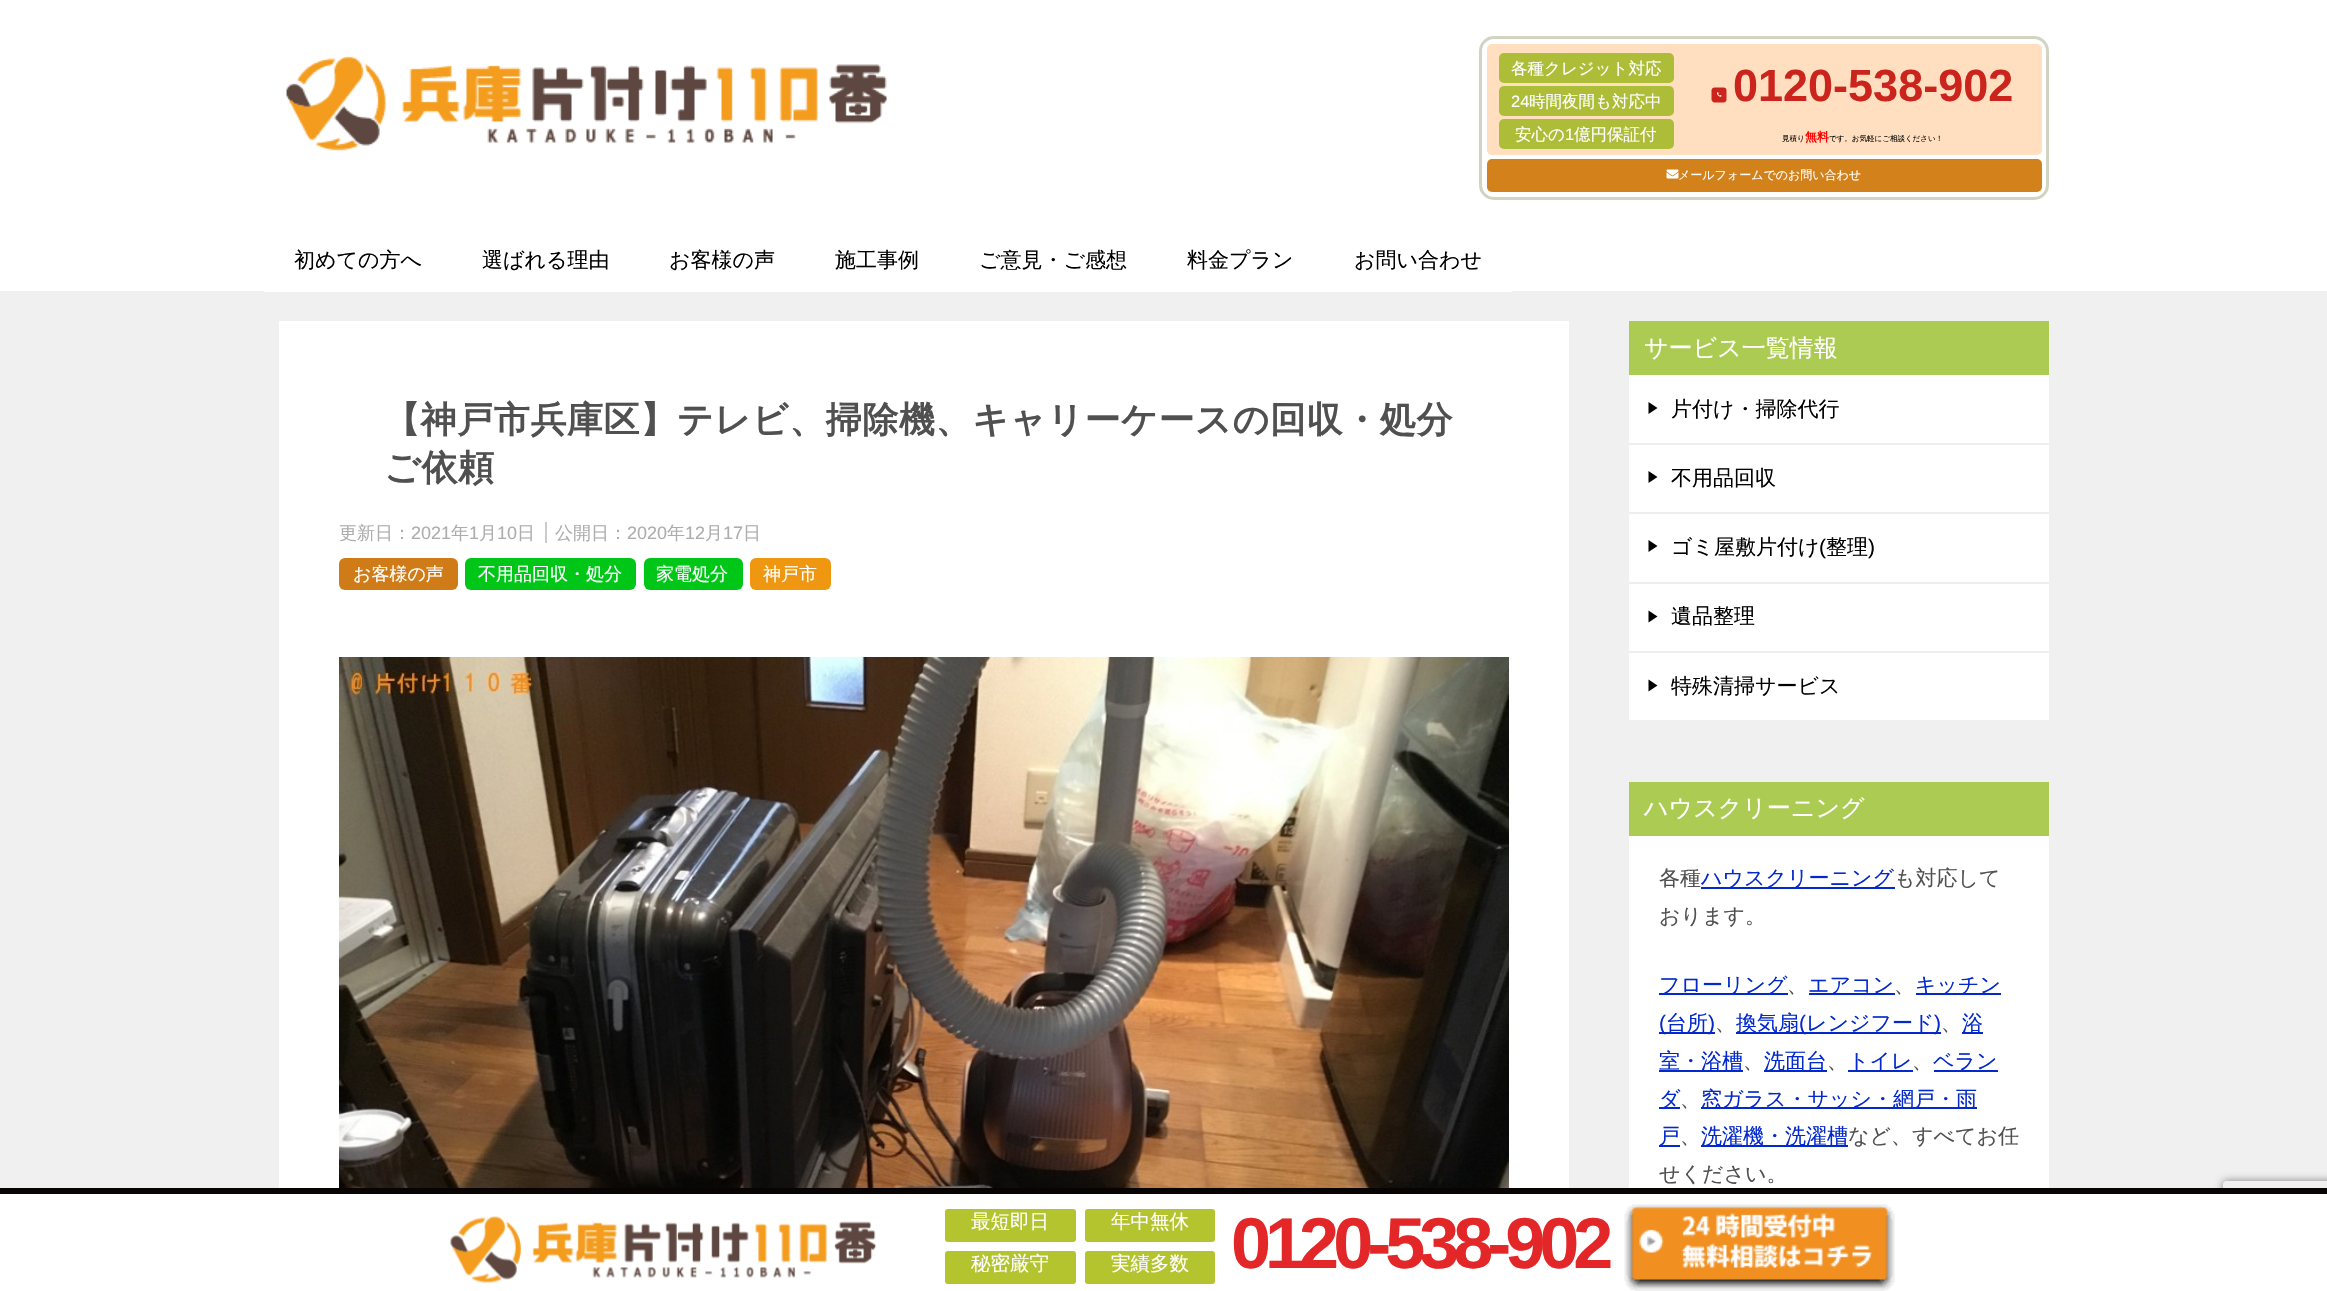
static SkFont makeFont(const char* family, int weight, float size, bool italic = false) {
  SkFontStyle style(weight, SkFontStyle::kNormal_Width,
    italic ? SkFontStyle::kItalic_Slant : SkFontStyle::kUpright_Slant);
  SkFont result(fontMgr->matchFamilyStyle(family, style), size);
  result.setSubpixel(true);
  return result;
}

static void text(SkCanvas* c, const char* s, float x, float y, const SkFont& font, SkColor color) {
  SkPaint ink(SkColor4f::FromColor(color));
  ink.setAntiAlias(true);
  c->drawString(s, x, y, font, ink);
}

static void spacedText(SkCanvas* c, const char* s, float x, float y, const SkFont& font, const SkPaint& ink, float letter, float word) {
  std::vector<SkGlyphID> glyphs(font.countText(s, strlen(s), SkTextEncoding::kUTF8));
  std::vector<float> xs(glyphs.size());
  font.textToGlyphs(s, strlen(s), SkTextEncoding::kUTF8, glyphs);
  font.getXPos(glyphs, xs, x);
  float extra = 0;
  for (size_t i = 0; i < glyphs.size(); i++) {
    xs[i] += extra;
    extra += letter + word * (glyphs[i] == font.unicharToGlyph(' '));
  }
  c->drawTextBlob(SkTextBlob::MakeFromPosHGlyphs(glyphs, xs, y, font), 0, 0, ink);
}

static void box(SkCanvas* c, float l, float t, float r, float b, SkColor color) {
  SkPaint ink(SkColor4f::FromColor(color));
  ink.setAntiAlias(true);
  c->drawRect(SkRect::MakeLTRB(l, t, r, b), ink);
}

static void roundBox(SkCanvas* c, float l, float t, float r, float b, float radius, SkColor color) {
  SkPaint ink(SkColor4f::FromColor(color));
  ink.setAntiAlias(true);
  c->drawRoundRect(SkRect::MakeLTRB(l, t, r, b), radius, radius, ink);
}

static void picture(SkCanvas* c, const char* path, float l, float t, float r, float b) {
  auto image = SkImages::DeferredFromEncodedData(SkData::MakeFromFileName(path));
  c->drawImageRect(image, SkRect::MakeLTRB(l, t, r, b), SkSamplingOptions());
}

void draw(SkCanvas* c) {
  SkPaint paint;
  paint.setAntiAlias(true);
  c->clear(0xfff0f0f0);
  box(c, 0, 0, 2327, 291, 0xffffffff);
  picture(c, "img_01.png", 286, 56, 888, 151);
  paint.setStyle(SkPaint::kStroke_Style);
  paint.setStrokeWidth(3);
  paint.setColor(0xffd1d4c0);
  c->drawRoundRect(SkRect::MakeLTRB(1480.5f, 37.5f, 2047.5f, 198.5f), 13.5f, 13.5f, paint);
  roundBox(c, 1487, 44, 2042, 155, 5, 0xffffdfbf);
  roundBox(c, 1499, 53, 1674, 83, 5, 0xffadbd38);
  SkFont face1 = makeFont("WenQuanYi Zen Hei", 500, 16.5f);
  text(c, "各種クレジット対応", 1511, 74, face1, 0xffffffff);
  roundBox(c, 1499, 86, 1674, 116, 5, 0xffadbd38);
  SkFont face2 = makeFont("Liberation Sans", 400, 16.5f);
  text(c, "24", 1511, 107, face2, 0xffffffff);
  text(c, "時間夜間も対応中", 1529, 107, face1, 0xffffffff);
  roundBox(c, 1499, 119, 1674, 149, 5, 0xffadbd38);
  text(c, "安心の", 1515, 140, face1, 0xffffffff);
  text(c, "1", 1565, 140, face2, 0xffffffff);
  text(c, "億円保証付", 1574, 140, face1, 0xffffffff);
  paint.setStyle(SkPaint::kFill_Style);
  paint.setColor(0xffcb241d);
  c->drawPath(SkPathBuilder().moveTo(1723.5f, 87.5f).lineTo(1714.5f, 87.5f).cubicTo(1713, 87.5f, 1711.5f, 88.5f, 1711.5f, 90.5f).lineTo(1711.5f, 99.5f).cubicTo(1711.5f, 101, 1713, 102.5f, 1714.5f, 102.5f).lineTo(1723.5f, 102.5f).cubicTo(1725.5f, 102.5f, 1726.5f, 101, 1726.5f, 99.5f).lineTo(1726.5f, 90.5f).cubicTo(1726.5f, 88.5f, 1725.5f, 87.5f, 1723.5f, 87.5f).close().detach(), paint);
  picture(c, "img_02.png", 1717, 92, 1722, 97);
  SkFont face3 = makeFont("Liberation Sans", 700, 45);
  text(c, "0120-538-902", 1733, 101, face3, 0xffcb241d);
  SkFont face4 = makeFont("WenQuanYi Zen Hei", 500, 7.5f);
  text(c, "見積り", 1782, 141, face4, 0xff000000);
  SkFont face5 = makeFont("WenQuanYi Zen Hei", 700, 12);
  text(c, "無料", 1805, 141, face5, 0xffff0000);
  text(c, "です。お気軽にご相談ください！", 1829, 141, face4, 0xff000000);
  roundBox(c, 1487, 159, 2042, 192, 5, 0xffd3811b);
  picture(c, "img_03.png", 1666, 169, 1679, 179);
  SkFont face6 = makeFont("WenQuanYi Zen Hei", 500, 12);
  text(c, "メールフォームでのお問い合わせ", 1678, 179, face6, 0xffffffff);
  box(c, 264, 291, 1512, 292, 0xffffffff);
  SkFont face7 = makeFont("WenQuanYi Zen Hei", 500, 21);
  text(c, "初めての方へ", 294, 267, face7, 0xff000000);
  text(c, "選ばれる理由", 482, 267, face7, 0xff000000);
  text(c, "お客様の声", 669, 267, face7, 0xff000000);
  text(c, "施工事例", 835, 267, face7, 0xff000000);
  text(c, "ご意見・ご感想", 979, 267, face7, 0xff000000);
  text(c, "料金プラン", 1187, 267, face7, 0xff000000);
  text(c, "お問い合わせ", 1354, 267, face7, 0xff000000);
  box(c, 279, 321, 1569, 1188, 0xffffffff);
  SkFont face8 = makeFont("WenQuanYi Zen Hei", 700, 36);
  paint.setColor(0xff505050);
  spacedText(c, "【神戸市兵庫区】テレビ、掃除機、キャリーケースの回収・処分", 384, 432, face8, paint, 0.6f, 0);
  spacedText(c, "ご依頼", 384, 480, face8, paint, 0.6f, 0);
  SkFont face9 = makeFont("WenQuanYi Zen Hei", 500, 18);
  text(c, "更新日：", 339, 539, face9, 0xffadadad);
  SkFont face10 = makeFont("Liberation Sans", 400, 18);
  text(c, "2021", 411, 539, face10, 0xffadadad);
  text(c, "年", 451, 539, face9, 0xffadadad);
  text(c, "1", 469, 539, face10, 0xffadadad);
  text(c, "月", 479, 539, face9, 0xffadadad);
  text(c, "10", 497, 539, face10, 0xffadadad);
  text(c, "日", 517, 539, face9, 0xffadadad);
  text(c, "公開日：", 555, 539, face9, 0xffadadad);
  box(c, 545, 522, 547, 543, 0xffcccccc);
  text(c, "2020", 627, 539, face10, 0xffadadad);
  text(c, "年", 667, 539, face9, 0xffadadad);
  text(c, "12", 685, 539, face10, 0xffadadad);
  text(c, "月", 705, 539, face9, 0xffadadad);
  text(c, "17", 723, 539, face10, 0xffadadad);
  text(c, "日", 743, 539, face9, 0xffadadad);
  roundBox(c, 339, 558, 458, 590, 6, 0xffcf7b17);
  text(c, "お客様の声", 353, 580, face9, 0xffffffff);
  roundBox(c, 465, 558, 636, 590, 6, 0xff00c717);
  text(c, "不用品回収・処分", 478, 580, face9, 0xffffffff);
  roundBox(c, 644, 558, 743, 590, 6, 0xff00c717);
  text(c, "家電処分", 656, 580, face9, 0xffffffff);
  roundBox(c, 750, 558, 831, 590, 6, 0xfff09712);
  text(c, "神戸市", 763, 580, face9, 0xffffffff);
  picture(c, "img_04.png", 339, 657, 1509, 1188);
  box(c, 1629, 375, 2049, 720, 0xffffffff);
  box(c, 1629, 321, 2049, 375, 0xffaccb52);
  SkFont face11 = makeFont("WenQuanYi Zen Hei", 500, 24);
  text(c, "サービス一覧情報", 1644, 356, face11, 0xffffffff);
  box(c, 1629, 443, 2049, 445, 0xffeeeeee);
  paint.setColor(0xff000000);
  c->drawPath(SkPathBuilder().moveTo(1648.5f, 414).lineTo(1648.5f, 402).lineTo(1657.5f, 408).close().detach(), paint);
  text(c, "片付け・掃除代行", 1671, 416, face7, 0xff000000);
  box(c, 1629, 512, 2049, 514, 0xffeeeeee);
  c->drawPath(SkPathBuilder().moveTo(1648.5f, 483).lineTo(1648.5f, 471).lineTo(1657.5f, 477).close().detach(), paint);
  text(c, "不用品回収", 1671, 485, face7, 0xff000000);
  box(c, 1629, 582, 2049, 584, 0xffeeeeee);
  c->drawPath(SkPathBuilder().moveTo(1648.5f, 552).lineTo(1648.5f, 540).lineTo(1657.5f, 546).close().detach(), paint);
  text(c, "ゴミ屋敷片付け", 1671, 554, face7, 0xff000000);
  SkFont face12 = makeFont("Liberation Sans", 400, 21);
  text(c, "(", 1819, 554, face12, 0xff000000);
  text(c, "整理", 1826, 554, face7, 0xff000000);
  text(c, ")", 1868, 554, face12, 0xff000000);
  box(c, 1629, 651, 2049, 653, 0xffeeeeee);
  c->drawPath(SkPathBuilder().moveTo(1648.5f, 622.5f).lineTo(1648.5f, 610.5f).lineTo(1657.5f, 616.5f).close().detach(), paint);
  text(c, "遺品整理", 1671, 623, face7, 0xff000000);
  c->drawPath(SkPathBuilder().moveTo(1648.5f, 691.5f).lineTo(1648.5f, 679.5f).lineTo(1657.5f, 685.5f).close().detach(), paint);
  text(c, "特殊清掃サービス", 1671, 693, face7, 0xff000000);
  box(c, 1629, 836, 2049, 1188, 0xffffffff);
  box(c, 1629, 782, 2049, 836, 0xffaccb52);
  text(c, "ハウスクリーニング", 1644, 816, face11, 0xffffffff);
  text(c, "各種", 1659, 885, face7, 0xff505050);
  box(c, 1701, 887, 1895, 889, 0xff0329ce);
  text(c, "ハウスクリーニング", 1701, 885, face7, 0xff0329ce);
  text(c, "も対応して", 1894, 885, face7, 0xff505050);
  text(c, "おります。", 1659, 923, face7, 0xff505050);
  box(c, 1659, 993, 1788, 995, 0xff0329ce);
  text(c, "フローリング", 1659, 992, face7, 0xff0329ce);
  text(c, "、", 1787, 992, face7, 0xff505050);
  box(c, 1809, 993, 1895, 995, 0xff0329ce);
  text(c, "エアコン", 1808, 992, face7, 0xff0329ce);
  text(c, "、", 1894, 992, face7, 0xff505050);
  box(c, 1916, 993, 2001, 995, 0xff0329ce);
  text(c, "キッチン", 1915, 992, face7, 0xff0329ce);
  box(c, 1659, 1032, 1715, 1034, 0xff0329ce);
  text(c, "(", 1659, 1030, face12, 0xff0329ce);
  text(c, "台所", 1666, 1030, face7, 0xff0329ce);
  text(c, ")", 1708, 1030, face12, 0xff0329ce);
  text(c, "、", 1715, 1030, face7, 0xff505050);
  box(c, 1736, 1032, 1941, 1034, 0xff0329ce);
  text(c, "換気扇", 1736, 1030, face7, 0xff0329ce);
  text(c, "(", 1799, 1030, face12, 0xff0329ce);
  text(c, "レンジフード", 1806, 1030, face7, 0xff0329ce);
  text(c, ")", 1934, 1030, face12, 0xff0329ce);
  text(c, "、", 1941, 1030, face7, 0xff505050);
  box(c, 1962, 1032, 1983, 1034, 0xff0329ce);
  text(c, "浴", 1962, 1030, face7, 0xff0329ce);
  box(c, 1659, 1070, 1743, 1072, 0xff0329ce);
  text(c, "室・浴槽", 1659, 1068, face7, 0xff0329ce);
  text(c, "、", 1743, 1068, face7, 0xff505050);
  box(c, 1764, 1070, 1827, 1072, 0xff0329ce);
  text(c, "洗面台", 1764, 1068, face7, 0xff0329ce);
  text(c, "、", 1827, 1068, face7, 0xff505050);
  box(c, 1848, 1070, 1913, 1072, 0xff0329ce);
  text(c, "トイレ", 1848, 1068, face7, 0xff0329ce);
  text(c, "、", 1912, 1068, face7, 0xff505050);
  box(c, 1934, 1070, 1998, 1072, 0xff0329ce);
  text(c, "ベラン", 1933, 1068, face7, 0xff0329ce);
  box(c, 1659, 1107, 1680, 1109, 0xff0329ce);
  text(c, "ダ", 1659, 1106, face7, 0xff0329ce);
  text(c, "、", 1680, 1106, face7, 0xff505050);
  box(c, 1701, 1107, 1977, 1109, 0xff0329ce);
  text(c, "窓ガラス・サッシ・網戸・雨", 1701, 1106, face7, 0xff0329ce);
  box(c, 1659, 1145, 1680, 1147, 0xff0329ce);
  text(c, "戸", 1659, 1143, face7, 0xff0329ce);
  text(c, "、", 1680, 1143, face7, 0xff505050);
  box(c, 1701, 1145, 1848, 1147, 0xff0329ce);
  text(c, "洗濯機・洗濯槽", 1701, 1143, face7, 0xff0329ce);
  text(c, "など、すべてお任", 1848, 1143, face7, 0xff505050);
  text(c, "せください。", 1659, 1181, face7, 0xff505050);
  c->save();
  c->clipPath(SkPathBuilder(SkPathFillType::kEvenOdd).moveTo(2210, 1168).lineTo(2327, 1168).lineTo(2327, 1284).lineTo(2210, 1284).close().moveTo(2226, 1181).lineTo(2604, 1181).cubicTo(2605.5f, 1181, 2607, 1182.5f, 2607, 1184).lineTo(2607, 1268).cubicTo(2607, 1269.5f, 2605.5f, 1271, 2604, 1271).lineTo(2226, 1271).cubicTo(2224.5f, 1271, 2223, 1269.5f, 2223, 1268).lineTo(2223, 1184).cubicTo(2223, 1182.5f, 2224.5f, 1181, 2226, 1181).close().detach(), true);
  paint.setColor(0xff808080);
  paint.setMaskFilter(SkMaskFilter::MakeBlur(kNormal_SkBlurStyle, 4));
  c->drawRoundRect(SkRect::MakeLTRB(2223, 1181, 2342, 1271), 3, 3, paint);
  paint.setMaskFilter(nullptr);
  c->restore();
  box(c, 0, 1194, 2327, 1291, 0xffffffff);
  box(c, 0, 1188, 2327, 1194, 0xff080404);
  picture(c, "img_05.png", 450, 1216, 877, 1283);
  roundBox(c, 945, 1209, 1076, 1242, 3, 0xffb3c42e);
  SkFont face13 = makeFont("WenQuanYi Zen Hei", 500, 19.5f);
  text(c, "最短即日", 971, 1228, face13, 0xffffffff);
  roundBox(c, 1085, 1209, 1215, 1242, 3, 0xffb3c42e);
  text(c, "年中無休", 1111, 1228, face13, 0xffffffff);
  roundBox(c, 945, 1251, 1076, 1284, 3, 0xffb3c42e);
  text(c, "秘密厳守", 971, 1270, face13, 0xffffffff);
  roundBox(c, 1085, 1251, 1215, 1284, 3, 0xffb3c42e);
  text(c, "実績多数", 1111, 1270, face13, 0xffffffff);
  SkFont face14 = makeFont("Liberation Sans", 700, 72);
  paint.setColor(0xffe32728);
  spacedText(c, "0120-538-902", 1231, 1268, face14, paint, -6, 0);
  picture(c, "img_06.png", 1624, 1204, 1895, 1291);
}
